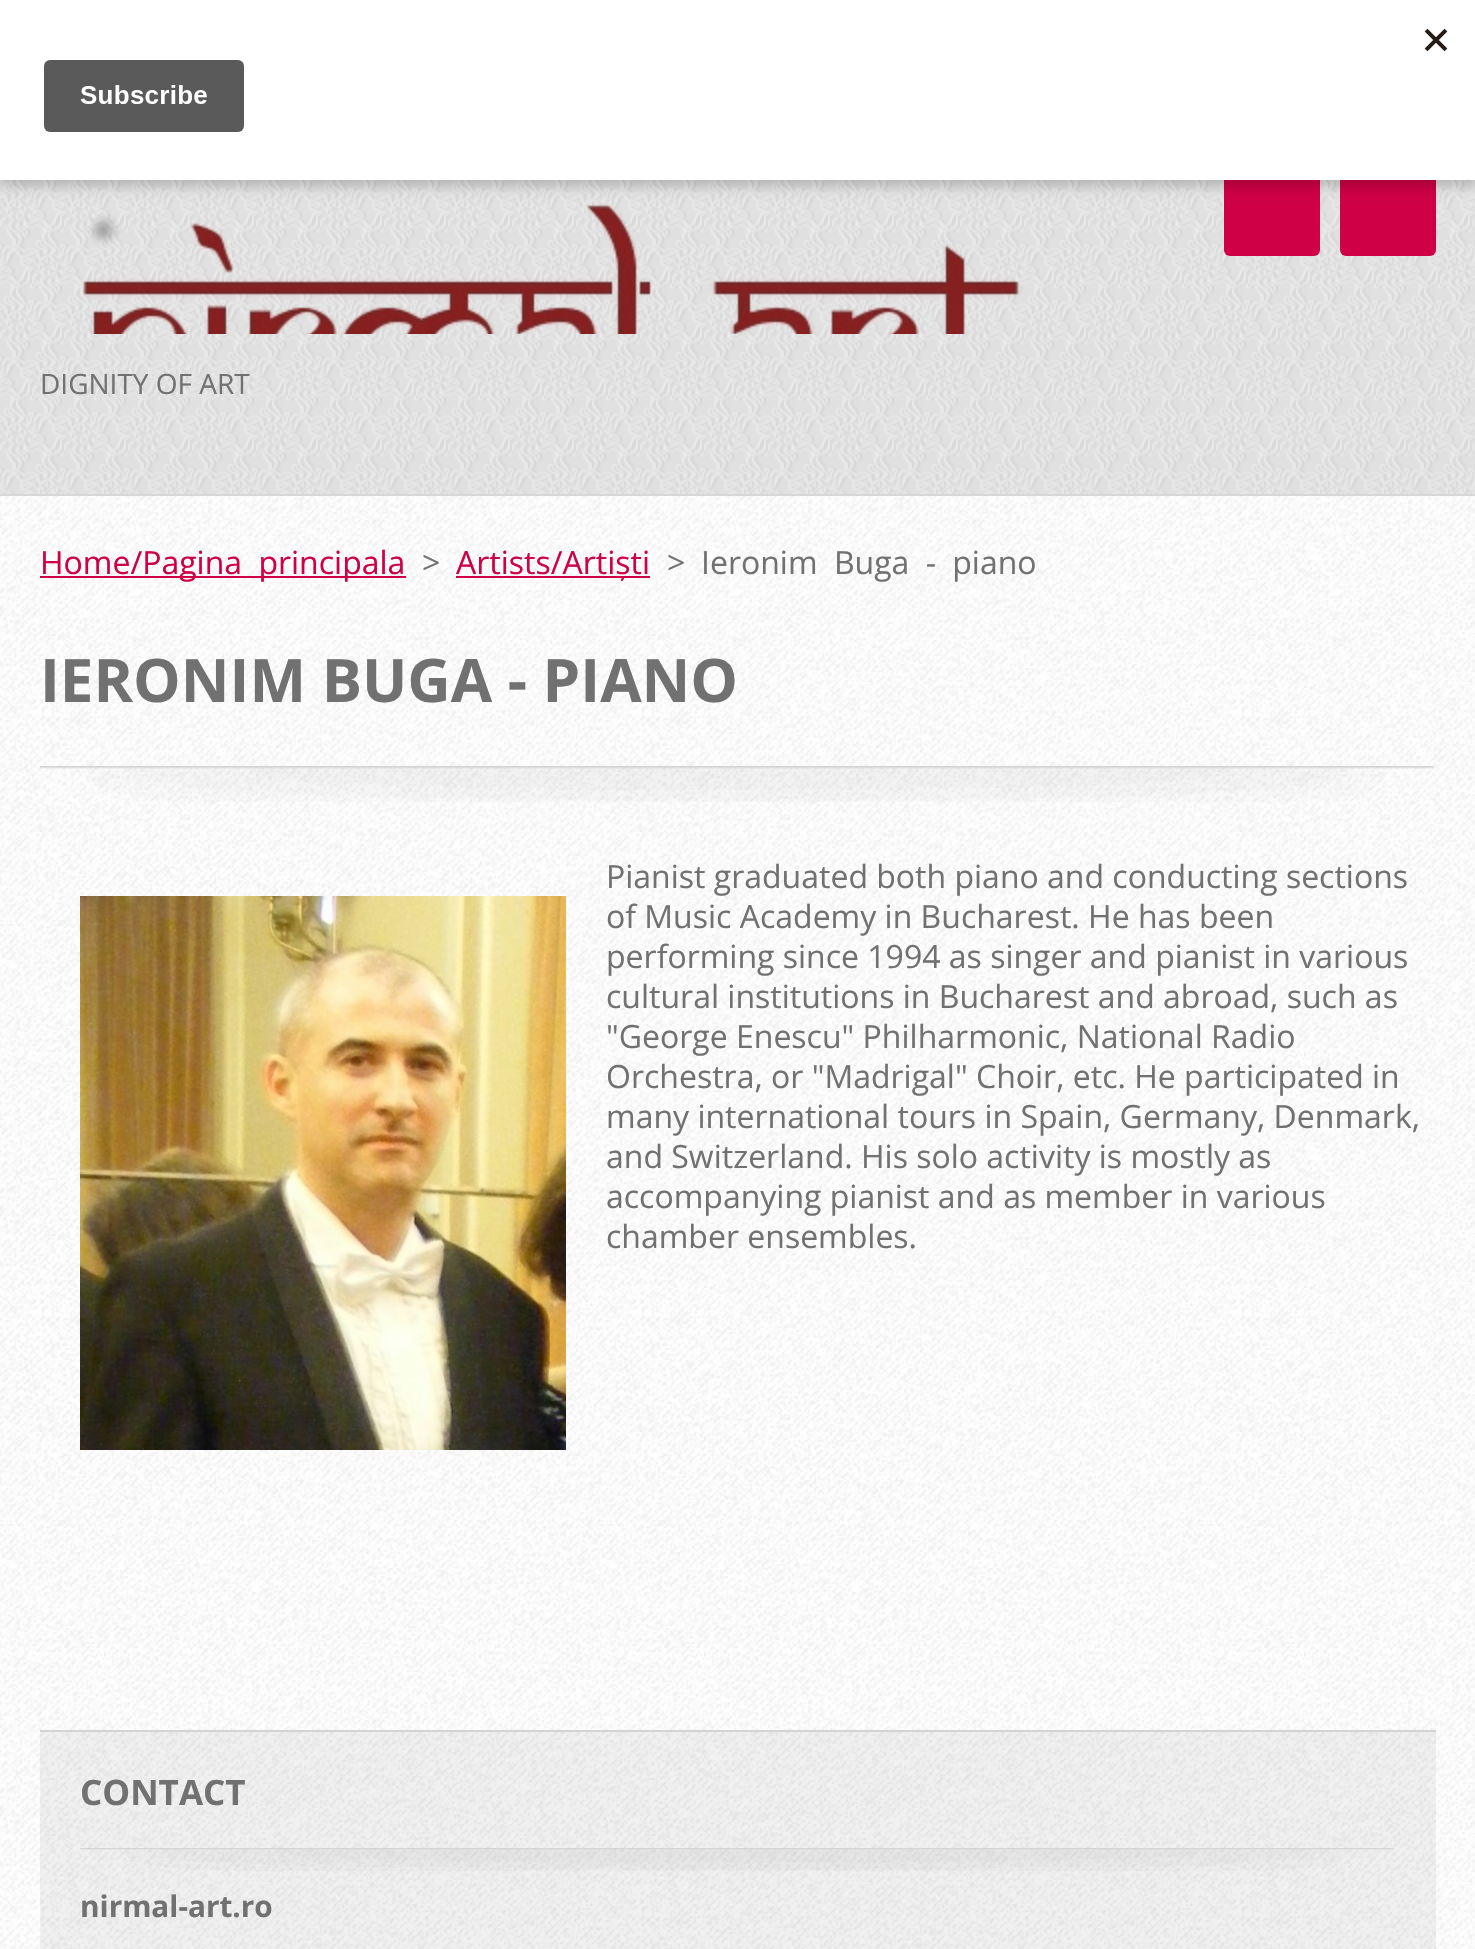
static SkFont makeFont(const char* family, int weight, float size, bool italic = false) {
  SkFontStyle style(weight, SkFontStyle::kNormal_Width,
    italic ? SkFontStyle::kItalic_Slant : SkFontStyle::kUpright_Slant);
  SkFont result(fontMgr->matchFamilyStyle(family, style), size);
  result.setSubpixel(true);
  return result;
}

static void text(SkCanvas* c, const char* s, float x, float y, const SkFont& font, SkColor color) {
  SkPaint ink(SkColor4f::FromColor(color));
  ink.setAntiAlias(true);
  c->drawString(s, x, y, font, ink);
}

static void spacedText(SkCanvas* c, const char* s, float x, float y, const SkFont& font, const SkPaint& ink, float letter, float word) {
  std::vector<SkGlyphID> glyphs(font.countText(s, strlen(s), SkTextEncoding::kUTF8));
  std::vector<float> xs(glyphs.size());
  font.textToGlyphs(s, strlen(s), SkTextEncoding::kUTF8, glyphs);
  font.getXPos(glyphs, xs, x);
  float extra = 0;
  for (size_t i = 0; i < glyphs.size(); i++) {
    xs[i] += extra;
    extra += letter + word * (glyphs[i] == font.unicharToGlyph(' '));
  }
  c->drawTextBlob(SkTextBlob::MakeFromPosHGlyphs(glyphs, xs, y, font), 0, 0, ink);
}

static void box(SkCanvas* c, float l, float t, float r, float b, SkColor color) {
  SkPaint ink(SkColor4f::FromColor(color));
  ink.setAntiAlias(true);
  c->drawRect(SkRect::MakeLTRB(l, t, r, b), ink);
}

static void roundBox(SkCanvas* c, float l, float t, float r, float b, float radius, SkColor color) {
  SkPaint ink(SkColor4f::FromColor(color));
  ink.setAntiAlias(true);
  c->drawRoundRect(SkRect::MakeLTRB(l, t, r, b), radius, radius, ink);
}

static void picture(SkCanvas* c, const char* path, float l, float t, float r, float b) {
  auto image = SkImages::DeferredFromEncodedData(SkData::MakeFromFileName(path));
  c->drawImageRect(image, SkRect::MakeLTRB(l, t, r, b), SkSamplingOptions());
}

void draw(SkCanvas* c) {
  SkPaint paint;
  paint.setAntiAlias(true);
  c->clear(0xffffffff);
  picture(c, "img_01.png", 0, 496, 1475, 1949);
  picture(c, "img_03.png", 0, 180, 1475, 494);
  roundBox(c, 1224, 160, 1320, 256, 6, 0xffcf0046);
  roundBox(c, 1340, 160, 1436, 256, 6, 0xffcf0046);
  picture(c, "img_04.png", 83, 204, 1020, 334);
  paint.setColor(0x33000000);
  paint.setMaskFilter(SkMaskFilter::MakeBlur(kNormal_SkBlurStyle, 6));
  c->drawRect(SkRect::MakeLTRB(0, 6, 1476, 186), paint);
  paint.setMaskFilter(nullptr);
  box(c, 0, 0, 1475, 180, 0xffffffff);
  picture(c, "img_02.png", 44, 28, 1448, 132);
  box(c, 0, 494, 1475, 496, 0xffd7d7d7);
  SkFont face1 = makeFont("Open Sans", 400, 28);
  text(c, "DIGNITY OF ART", 40, 394, face1, 0xff717171);
  box(c, 40, 576, 406, 578, 0xffcf0046);
  SkFont face2 = makeFont("Open Sans", 400, 32);
  paint.setColor(0xffcf0046);
  spacedText(c, "Home/Pagina principala", 40, 574, face2, paint, 0, 8);
  text(c, ">", 422, 574, face2, 0xff717171);
  box(c, 456, 576, 650, 578, 0xffcf0046);
  text(c, "Artists/Artiști", 456, 574, face2, 0xffcf0046);
  text(c, ">", 667, 574, face2, 0xff717171);
  paint.setColor(0xff717171);
  spacedText(c, "Ieronim Buga - piano", 701, 574, face2, paint, 0, 8);
  picture(c, "img_05.png", 40, 766, 1435, 802);
  SkFont face3 = makeFont("Open Sans", 700, 60);
  text(c, "IERONIM BUGA - PIANO", 40, 702, face3, 0xff717171);
  picture(c, "img_06.png", 80, 896, 566, 1450);
  text(c, "Pianist graduated both piano and conducting sections", 606, 888, face2, 0xff717171);
  text(c, "of Music Academy in Bucharest. He has been", 606, 928, face2, 0xff717171);
  text(c, "performing since 1994 as singer and pianist in various", 606, 968, face2, 0xff717171);
  text(c, "cultural institutions in Bucharest and abroad, such as", 606, 1008, face2, 0xff717171);
  text(c, "\"George Enescu\" Philharmonic, National Radio", 606, 1048, face2, 0xff717171);
  text(c, "Orchestra, or \"Madrigal\" Choir, etc. He participated in", 606, 1088, face2, 0xff717171);
  text(c, "many international tours in Spain, Germany, Denmark,", 606, 1128, face2, 0xff717171);
  text(c, "and Switzerland. His solo activity is mostly as", 606, 1168, face2, 0xff717171);
  text(c, "accompanying pianist and as member in various", 606, 1208, face2, 0xff717171);
  text(c, "chamber ensembles.", 606, 1248, face2, 0xff717171);
  box(c, 40, 1732, 1436, 1949, 0x0d000000);
  box(c, 40, 1730, 1436, 1732, 0xffd3d3d3);
  picture(c, "img_07.png", 80, 1848, 1395, 1871);
  SkFont face4 = makeFont("Open Sans", 700, 35);
  text(c, "CONTACT", 80, 1805, face4, 0xff717171);
  SkFont face5 = makeFont("Open Sans", 700, 29.75f);
  text(c, "nirmal-art.ro", 80, 1917, face5, 0xff717171);
}
